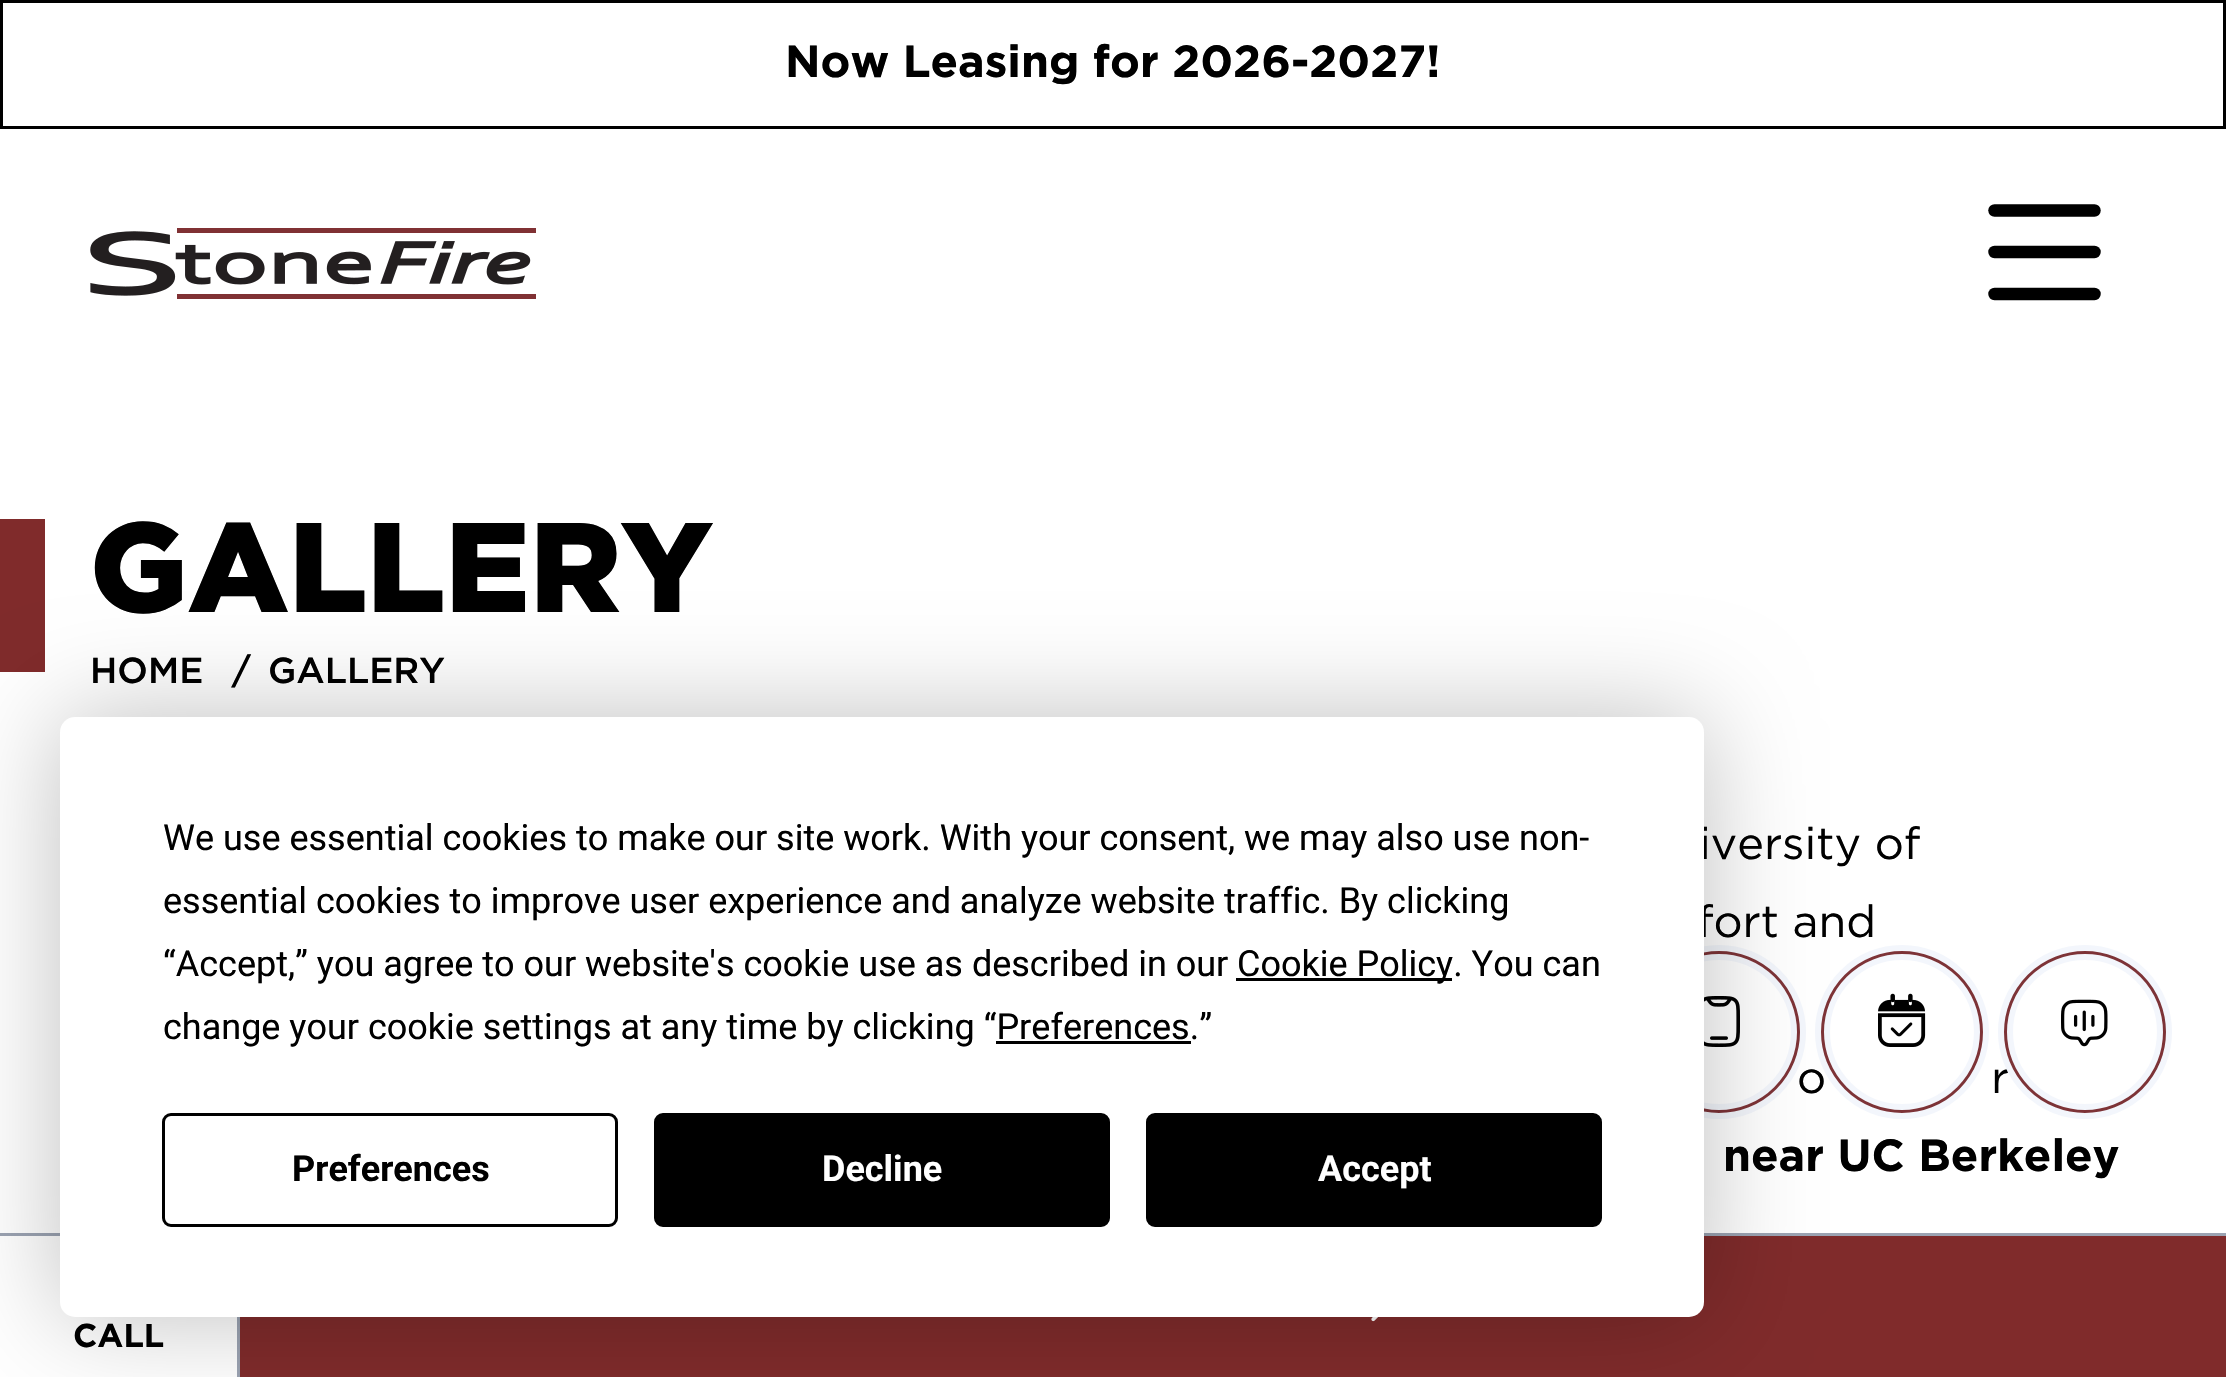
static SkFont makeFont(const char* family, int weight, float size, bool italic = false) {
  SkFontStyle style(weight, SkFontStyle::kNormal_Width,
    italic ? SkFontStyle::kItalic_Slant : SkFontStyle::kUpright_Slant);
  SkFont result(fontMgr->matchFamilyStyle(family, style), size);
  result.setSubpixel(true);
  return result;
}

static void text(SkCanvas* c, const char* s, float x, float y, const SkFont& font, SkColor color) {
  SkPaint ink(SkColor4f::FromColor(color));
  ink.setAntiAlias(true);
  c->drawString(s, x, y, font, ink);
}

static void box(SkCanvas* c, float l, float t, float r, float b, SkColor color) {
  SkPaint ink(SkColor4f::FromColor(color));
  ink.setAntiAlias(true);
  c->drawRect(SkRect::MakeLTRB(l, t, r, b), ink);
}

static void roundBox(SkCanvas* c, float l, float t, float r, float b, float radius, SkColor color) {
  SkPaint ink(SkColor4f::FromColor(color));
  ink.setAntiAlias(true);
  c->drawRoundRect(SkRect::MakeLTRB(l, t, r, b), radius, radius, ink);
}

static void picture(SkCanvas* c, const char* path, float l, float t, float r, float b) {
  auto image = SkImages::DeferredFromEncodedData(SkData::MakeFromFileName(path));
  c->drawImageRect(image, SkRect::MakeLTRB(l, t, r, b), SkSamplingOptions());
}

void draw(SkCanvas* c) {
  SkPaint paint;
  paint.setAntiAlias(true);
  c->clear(0xffffffff);
  paint.setStyle(SkPaint::kStroke_Style);
  paint.setStrokeWidth(3);
  paint.setColor(0xff000000);
  c->drawRect(SkRect::MakeLTRB(1.5f, 1.5f, 2224.5f, 127.5f), paint);
  SkFont face1 = makeFont("Gotham", 700, 45);
  text(c, "Now Leasing for 2026-2027!", 785, 77, face1, 0xff000000);
  picture(c, "img_01.png", 90, 228, 536, 299);
  paint.setStrokeWidth(12.5f);
  paint.setStrokeCap(SkPaint::kRound_Cap);
  paint.setStrokeJoin(SkPaint::kRound_Join);
  c->drawPath(SkPathBuilder().moveTo(1994.5f, 210.5f).lineTo(2094.5f, 210.5f).detach(), paint);
  c->drawPath(SkPathBuilder().moveTo(1994.5f, 252).lineTo(2094.5f, 252).detach(), paint);
  c->drawPath(SkPathBuilder().moveTo(1994.5f, 294).lineTo(2094.5f, 294).detach(), paint);
  box(c, 0, 519, 45, 672, 0xff802b2b);
  SkFont face2 = makeFont("Gotham", 900, 127);
  text(c, "GALLERY", 90, 612, face2, 0xff000000);
  SkFont face3 = makeFont("Gotham", 500, 36);
  text(c, "HOME", 90, 683, face3, 0xff000000);
  text(c, "/", 232, 683, face3, 0xff000000);
  text(c, "GALLERY", 268, 683, face3, 0xff000000);
  SkFont face4 = makeFont("Gotham", 400, 45);
  text(c, "iversity of", 1699, 859, face4, 0xff000000);
  text(c, "fort and", 1697, 937, face4, 0xff000000);
  text(c, "o", 1797, 1093, face4, 0xff000000);
  text(c, "r", 1991, 1093, face4, 0xff000000);
  text(c, "near UC Berkeley", 1723, 1171, face1, 0xff000000);
  paint.setStyle(SkPaint::kFill_Style);
  paint.setColor(0xff7d3337);
  c->drawCircle(1719, 1032, 84, paint);
  paint.setStyle(SkPaint::kStroke_Style);
  paint.setStrokeWidth(6);
  paint.setStrokeCap(SkPaint::kButt_Cap);
  paint.setStrokeJoin(SkPaint::kMiter_Join);
  paint.setColor(0xfff3f6fc);
  c->drawCircle(1719, 1032, 84, paint);
  paint.setStyle(SkPaint::kFill_Style);
  paint.setColor(0xffffffff);
  c->drawCircle(1719, 1032, 75, paint);
  paint.setStyle(SkPaint::kStroke_Style);
  paint.setColor(0xfff3f6fc);
  c->drawCircle(1719, 1032, 75, paint);
  picture(c, "img_02.png", 1704, 996, 1740, 1047);
  paint.setStyle(SkPaint::kFill_Style);
  paint.setColor(0xff7d3337);
  c->drawCircle(1902, 1032, 84, paint);
  paint.setStyle(SkPaint::kStroke_Style);
  paint.setColor(0xfff3f6fc);
  c->drawCircle(1902, 1032, 84, paint);
  paint.setStyle(SkPaint::kFill_Style);
  paint.setColor(0xffffffff);
  c->drawCircle(1902, 1032, 75, paint);
  paint.setStyle(SkPaint::kStroke_Style);
  paint.setColor(0xfff3f6fc);
  c->drawCircle(1902, 1032, 75, paint);
  box(c, 0, 1233, 60, 1236, 0xff9ba3b2);
  box(c, 237, 1317, 240, 1377, 0xff9ba3b2);
  box(c, 240, 1236, 2226, 1377, 0xff802b2b);
  box(c, 1704, 1233, 2226, 1236, 0xff9ba3b2);
  picture(c, "img_05.png", 1371, 1317, 1378, 1322);
  paint.setStyle(SkPaint::kFill_Style);
  paint.setColor(0x40000000);
  paint.setMaskFilter(SkMaskFilter::MakeBlur(kNormal_SkBlurStyle, 52.5f));
  c->drawRoundRect(SkRect::MakeLTRB(60, 717, 1704, 1317), 15, 15, paint);
  paint.setMaskFilter(nullptr);
  roundBox(c, 60, 717, 1704, 1317, 15, 0xffffffff);
  SkFont face5 = makeFont("Roboto", 400, 36);
  text(c, "We use essential cookies to make our site work. With your consent, we may also use non-", 163, 850, face5, 0xff000000);
  text(c, "essential cookies to improve user experience and analyze website traffic. By clicking", 163, 913, face5, 0xff000000);
  text(c, "“Accept,” you agree to our website's cookie use as described in our", 163, 976, face5, 0xff000000);
  box(c, 1236, 978, 1452, 981, 0xff000000);
  text(c, "Cookie Policy. You can", 1237, 976, face5, 0xff000000);
  text(c, "change your cookie settings at any time by clicking “Preferences.”", 163, 1039, face5, 0xff000000);
  box(c, 996, 1041, 1191, 1044, 0xff000000);
  paint.setStyle(SkPaint::kStroke_Style);
  paint.setStrokeWidth(3);
  paint.setColor(0xff000000);
  c->drawRoundRect(SkRect::MakeLTRB(163.5f, 1114.5f, 616.5f, 1225.5f), 7.5f, 7.5f, paint);
  SkFont face6 = makeFont("Roboto", 700, 36);
  text(c, "Preferences", 292, 1181, face6, 0xff000000);
  paint.setStyle(SkPaint::kFill_Style);
  c->drawRoundRect(SkRect::MakeLTRB(655.5f, 1114.5f, 1108.5f, 1225.5f), 7.5f, 7.5f, paint);
  paint.setStyle(SkPaint::kStroke_Style);
  c->drawRoundRect(SkRect::MakeLTRB(655.5f, 1114.5f, 1108.5f, 1225.5f), 7.5f, 7.5f, paint);
  text(c, "Decline", 822, 1181, face6, 0xffffffff);
  paint.setStyle(SkPaint::kFill_Style);
  c->drawRoundRect(SkRect::MakeLTRB(1147.5f, 1114.5f, 1600.5f, 1225.5f), 7.5f, 7.5f, paint);
  paint.setStyle(SkPaint::kStroke_Style);
  c->drawRoundRect(SkRect::MakeLTRB(1147.5f, 1114.5f, 1600.5f, 1225.5f), 7.5f, 7.5f, paint);
  text(c, "Accept", 1318, 1181, face6, 0xffffffff);
  picture(c, "img_03.png", 1878, 993, 1926, 1047);
  paint.setStyle(SkPaint::kFill_Style);
  paint.setColor(0xff7d3337);
  c->drawCircle(2085, 1032, 84, paint);
  paint.setStyle(SkPaint::kStroke_Style);
  paint.setStrokeWidth(6);
  paint.setColor(0xfff3f6fc);
  c->drawCircle(2085, 1032, 84, paint);
  paint.setStyle(SkPaint::kFill_Style);
  paint.setColor(0xffffffff);
  c->drawCircle(2085, 1032, 75, paint);
  paint.setStyle(SkPaint::kStroke_Style);
  paint.setColor(0xfff3f6fc);
  c->drawCircle(2085, 1032, 75, paint);
  picture(c, "img_04.png", 2061, 999, 2108, 1047);
  SkFont face7 = makeFont("Gotham", 700, 33);
  text(c, "CALL", 73, 1347, face7, 0xff000000);
}
